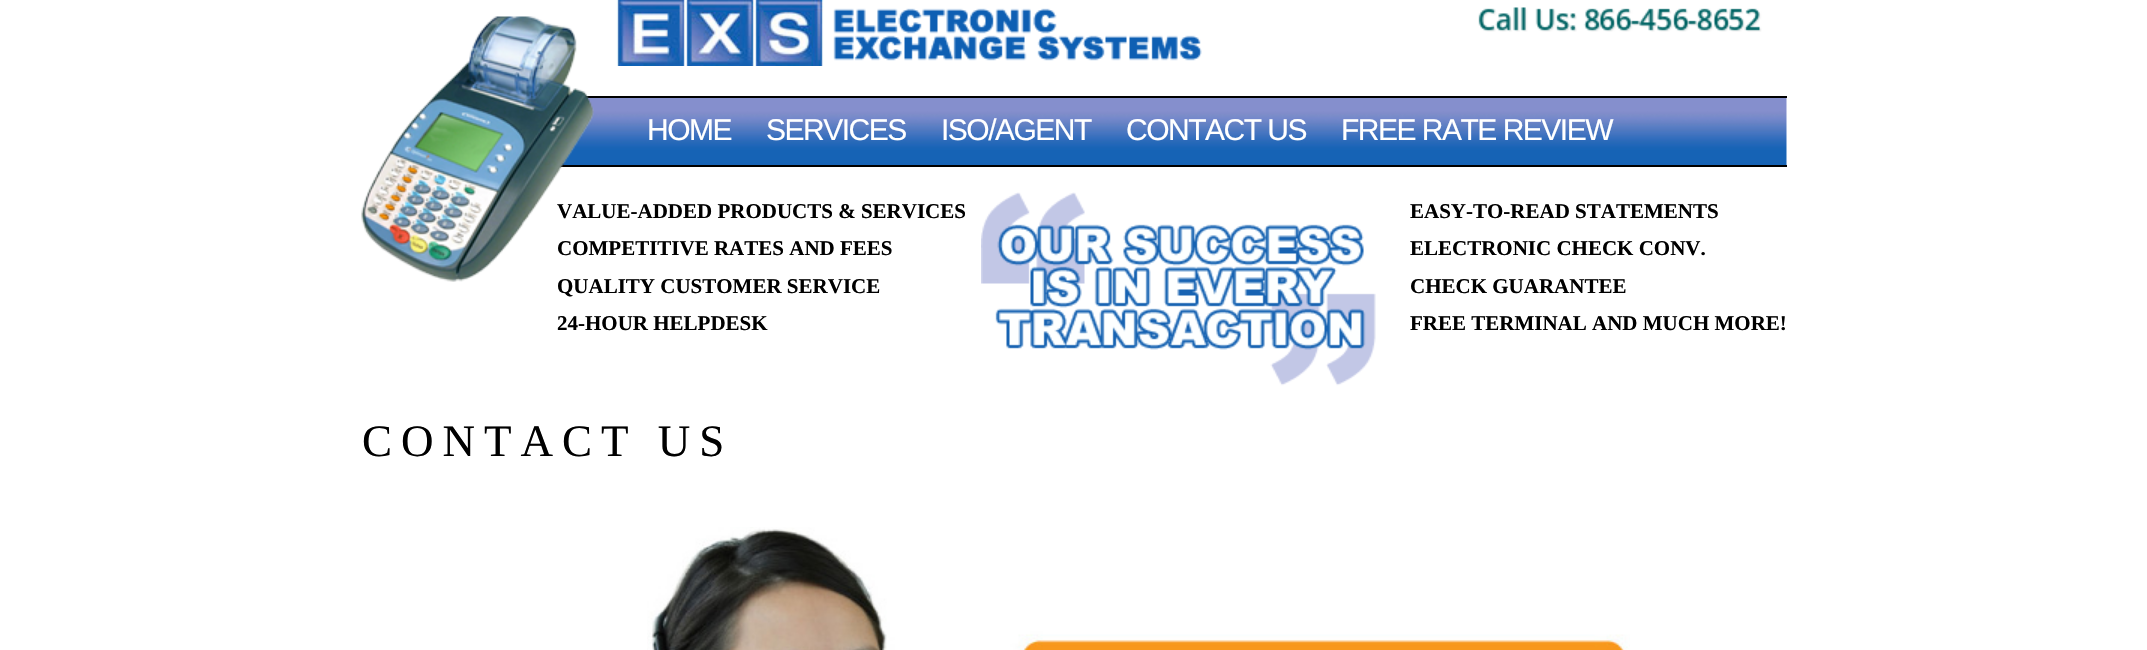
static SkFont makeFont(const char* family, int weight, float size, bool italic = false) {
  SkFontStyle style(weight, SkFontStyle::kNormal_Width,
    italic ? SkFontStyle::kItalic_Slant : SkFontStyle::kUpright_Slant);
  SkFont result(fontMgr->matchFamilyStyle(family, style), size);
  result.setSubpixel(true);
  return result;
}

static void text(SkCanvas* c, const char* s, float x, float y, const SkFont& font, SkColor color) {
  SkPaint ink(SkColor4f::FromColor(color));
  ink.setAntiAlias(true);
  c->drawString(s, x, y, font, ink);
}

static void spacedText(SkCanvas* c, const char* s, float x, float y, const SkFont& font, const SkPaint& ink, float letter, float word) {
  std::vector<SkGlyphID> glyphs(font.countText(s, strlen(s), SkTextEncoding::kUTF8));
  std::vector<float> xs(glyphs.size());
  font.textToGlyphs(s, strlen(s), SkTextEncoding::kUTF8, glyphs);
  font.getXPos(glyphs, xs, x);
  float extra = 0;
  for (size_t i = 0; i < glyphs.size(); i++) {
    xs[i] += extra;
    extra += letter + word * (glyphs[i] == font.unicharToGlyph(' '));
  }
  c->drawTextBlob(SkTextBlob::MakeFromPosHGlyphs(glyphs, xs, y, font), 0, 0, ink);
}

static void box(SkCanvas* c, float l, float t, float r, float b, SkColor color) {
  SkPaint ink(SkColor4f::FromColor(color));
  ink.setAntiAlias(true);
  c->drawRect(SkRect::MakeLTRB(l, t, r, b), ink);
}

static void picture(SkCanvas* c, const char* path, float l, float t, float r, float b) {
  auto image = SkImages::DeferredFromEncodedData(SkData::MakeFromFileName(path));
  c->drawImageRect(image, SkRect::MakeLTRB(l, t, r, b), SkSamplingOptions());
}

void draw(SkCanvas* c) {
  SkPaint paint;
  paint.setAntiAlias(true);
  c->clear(0xffffffff);
  picture(c, "img_01.png", 616, 0, 1202, 66);
  picture(c, "img_02.png", 1478, 7, 1762, 32);
  picture(c, "img_04.png", 560, 98, 1787, 165);
  box(c, 585, 96, 1787, 98, 0xff000000);
  box(c, 559, 165, 1787, 167, 0xff000000);
  picture(c, "img_03.png", 361, 16, 594, 282);
  SkFont face1 = makeFont("Liberation Sans", 400, 30);
  paint.setColor(0xffffffff);
  spacedText(c, "HOME", 647, 140, face1, paint, -1.5f, 0);
  spacedText(c, "SERVICES", 766, 140, face1, paint, -1.5f, 0);
  spacedText(c, "ISO/AGENT", 941, 140, face1, paint, -1.5f, 0);
  spacedText(c, "CONTACT US", 1126, 140, face1, paint, -1.5f, 0);
  spacedText(c, "FREE RATE REVIEW", 1341, 140, face1, paint, -1.5f, 0);
  SkFont face2 = makeFont("Liberation Serif", 700, 21);
  text(c, "VALUE-ADDED PRODUCTS & SERVICES", 557, 218, face2, 0xff000000);
  text(c, "COMPETITIVE RATES AND FEES", 557, 255, face2, 0xff000000);
  text(c, "QUALITY CUSTOMER SERVICE", 557, 293, face2, 0xff000000);
  text(c, "24-HOUR HELPDESK", 557, 330, face2, 0xff000000);
  picture(c, "img_05.png", 981, 192, 1376, 386);
  text(c, "EASY-TO-READ STATEMENTS", 1410, 218, face2, 0xff000000);
  text(c, "ELECTRONIC CHECK CONV.", 1410, 255, face2, 0xff000000);
  text(c, "CHECK GUARANTEE", 1410, 293, face2, 0xff000000);
  text(c, "FREE TERMINAL AND MUCH MORE!", 1410, 330, face2, 0xff000000);
  SkFont face3 = makeFont("Liberation Serif", 400, 45);
  paint.setColor(0xff000000);
  spacedText(c, "CONTACT US", 362, 456, face3, paint, 9, 0);
  picture(c, "img_06.png", 647, 527, 1630, 650);
}
